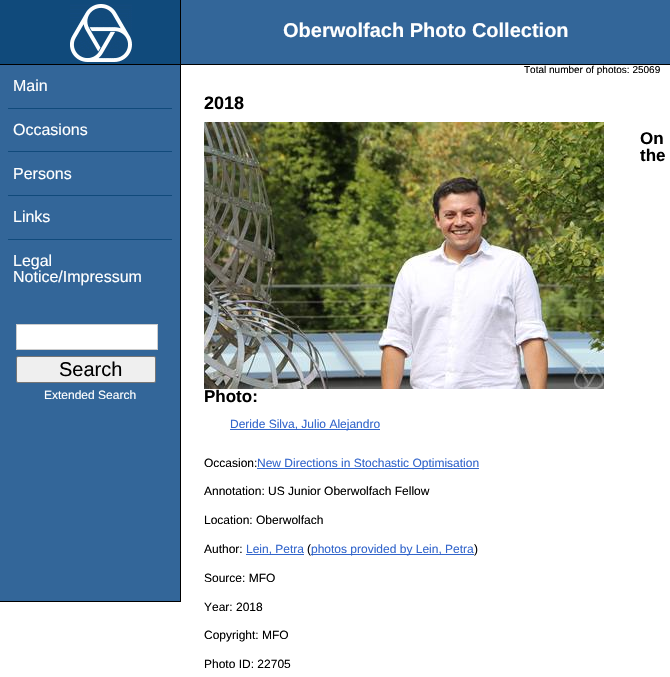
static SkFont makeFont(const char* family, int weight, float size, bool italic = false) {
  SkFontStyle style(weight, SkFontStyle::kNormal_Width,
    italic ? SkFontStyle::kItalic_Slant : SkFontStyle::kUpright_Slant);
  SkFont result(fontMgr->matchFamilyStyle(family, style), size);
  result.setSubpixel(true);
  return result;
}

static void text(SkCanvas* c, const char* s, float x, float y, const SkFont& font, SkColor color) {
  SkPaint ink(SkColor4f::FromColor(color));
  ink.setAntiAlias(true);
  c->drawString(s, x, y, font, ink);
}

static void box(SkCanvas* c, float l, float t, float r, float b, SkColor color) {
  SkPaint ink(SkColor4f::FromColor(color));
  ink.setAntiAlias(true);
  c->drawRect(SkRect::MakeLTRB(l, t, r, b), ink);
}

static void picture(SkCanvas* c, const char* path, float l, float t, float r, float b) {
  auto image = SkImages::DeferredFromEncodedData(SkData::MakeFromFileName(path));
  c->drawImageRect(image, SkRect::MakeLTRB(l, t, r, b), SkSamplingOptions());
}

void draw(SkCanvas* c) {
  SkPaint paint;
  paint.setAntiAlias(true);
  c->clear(0xffffffff);
  box(c, 181, 0, 670, 64, 0xff336699);
  box(c, 0, 64, 670, 65, 0xff000000);
  box(c, 0, 0, 180, 64, 0xff104a7b);
  box(c, 180, 0, 181, 64, 0xff000000);
  picture(c, "img_01.png", 70, 4, 132, 62);
  SkFont face1 = makeFont("Liberation Sans", 700, 20);
  text(c, "Oberwolfach Photo Collection", 283, 37, face1, 0xffffffff);
  SkFont face2 = makeFont("Liberation Sans", 400, 10);
  text(c, "Total number of photos: 25069", 524, 73, face2, 0xff000000);
  box(c, 0, 65, 180, 601, 0xff336699);
  box(c, 180, 65, 181, 602, 0xff000000);
  box(c, 0, 601, 181, 602, 0xff000000);
  SkFont face3 = makeFont("Liberation Sans", 400, 16);
  text(c, "Main", 13, 91, face3, 0xffffffff);
  box(c, 8, 108, 172, 109, 0xff104a7b);
  text(c, "Occasions", 13, 135, face3, 0xffffffff);
  box(c, 8, 151, 172, 152, 0xff104a7b);
  text(c, "Persons", 13, 179, face3, 0xffffffff);
  box(c, 8, 195, 172, 196, 0xff104a7b);
  text(c, "Links", 13, 222, face3, 0xffffffff);
  box(c, 8, 239, 172, 240, 0xff104a7b);
  text(c, "Legal", 13, 266, face3, 0xffffffff);
  text(c, "Notice/Impressum", 13, 282, face3, 0xffffffff);
  paint.setColor(0xffffffff);
  c->drawRect(SkRect::MakeLTRB(16.5f, 324.5f, 157.5f, 349.5f), paint);
  paint.setStyle(SkPaint::kStroke_Style);
  paint.setStrokeWidth(1);
  paint.setColor(0xffcccccc);
  c->drawRect(SkRect::MakeLTRB(16.5f, 324.5f, 157.5f, 349.5f), paint);
  paint.setStyle(SkPaint::kFill_Style);
  paint.setColor(0xffefefef);
  c->drawRoundRect(SkRect::MakeLTRB(16.5f, 356.5f, 155.5f, 382.5f), 1.5f, 1.5f, paint);
  paint.setStyle(SkPaint::kStroke_Style);
  paint.setColor(0xff767676);
  c->drawRoundRect(SkRect::MakeLTRB(16.5f, 356.5f, 155.5f, 382.5f), 1.5f, 1.5f, paint);
  SkFont face4 = makeFont("Liberation Sans", 400, 20);
  text(c, "Search", 59, 376, face4, 0xff000000);
  SkFont face5 = makeFont("Liberation Sans", 400, 12);
  text(c, "Extended Search", 44, 399, face5, 0xffffffff);
  SkFont face6 = makeFont("Liberation Sans", 700, 18);
  text(c, "2018", 204, 109, face6, 0xff000000);
  picture(c, "img_02.png", 204, 122, 604, 389);
  SkFont face7 = makeFont("Liberation Sans", 700, 17);
  text(c, "On", 640, 144, face7, 0xff000000);
  text(c, "the", 640, 161, face7, 0xff000000);
  text(c, "Photo:", 204, 402, face7, 0xff000000);
  box(c, 230, 429, 380, 430, 0xff3366cc);
  text(c, "Deride Silva, Julio Alejandro", 230, 428, face5, 0xff3366cc);
  text(c, "Occasion:", 204, 467, face5, 0xff000000);
  box(c, 257, 468, 479, 469, 0xff3366cc);
  text(c, "New Directions in Stochastic Optimisation", 257, 467, face5, 0xff3366cc);
  text(c, "Annotation: US Junior Oberwolfach Fellow", 204, 495, face5, 0xff000000);
  text(c, "Location: Oberwolfach", 204, 524, face5, 0xff000000);
  text(c, "Author:", 204, 553, face5, 0xff000000);
  box(c, 246, 554, 304, 555, 0xff3366cc);
  text(c, "Lein, Petra", 246, 553, face5, 0xff3366cc);
  text(c, "(", 307, 553, face5, 0xff000000);
  box(c, 311, 554, 474, 555, 0xff3366cc);
  text(c, "photos provided by Lein, Petra", 311, 553, face5, 0xff3366cc);
  text(c, ")", 474, 553, face5, 0xff000000);
  text(c, "Source: MFO", 204, 582, face5, 0xff000000);
  text(c, "Year: 2018", 204, 611, face5, 0xff000000);
  text(c, "Copyright: MFO", 204, 639, face5, 0xff000000);
  text(c, "Photo ID: 22705", 204, 668, face5, 0xff000000);
}
